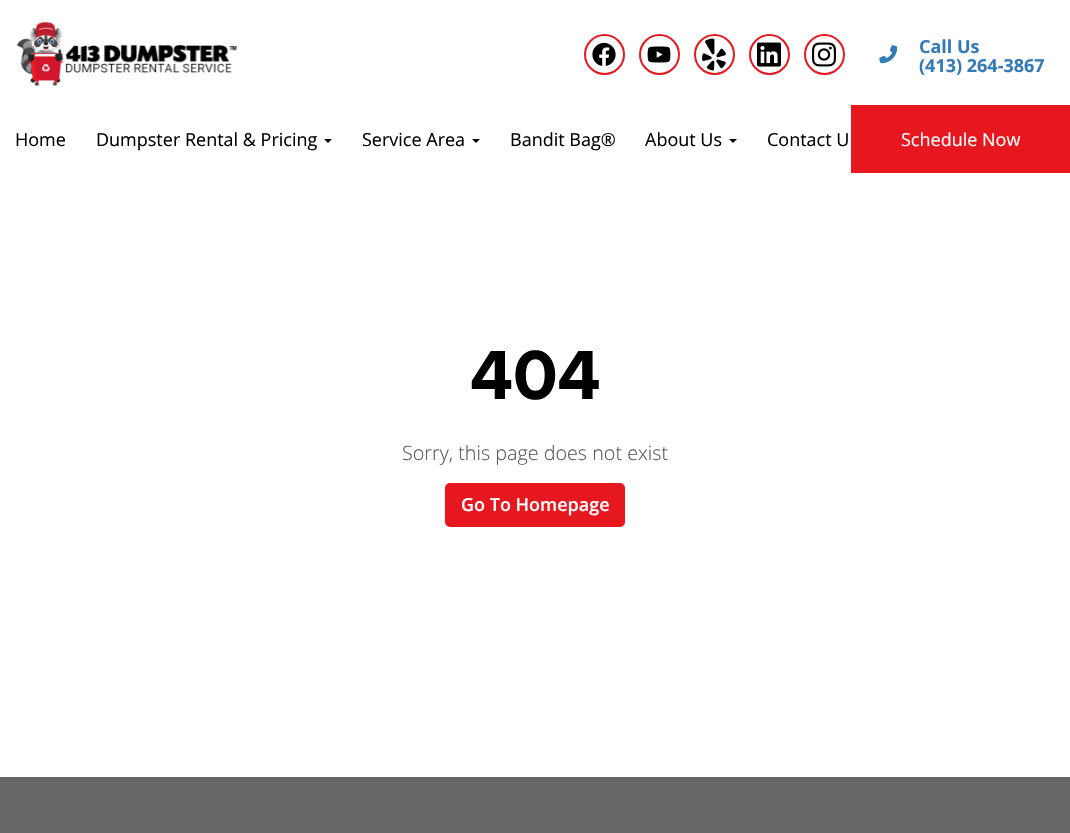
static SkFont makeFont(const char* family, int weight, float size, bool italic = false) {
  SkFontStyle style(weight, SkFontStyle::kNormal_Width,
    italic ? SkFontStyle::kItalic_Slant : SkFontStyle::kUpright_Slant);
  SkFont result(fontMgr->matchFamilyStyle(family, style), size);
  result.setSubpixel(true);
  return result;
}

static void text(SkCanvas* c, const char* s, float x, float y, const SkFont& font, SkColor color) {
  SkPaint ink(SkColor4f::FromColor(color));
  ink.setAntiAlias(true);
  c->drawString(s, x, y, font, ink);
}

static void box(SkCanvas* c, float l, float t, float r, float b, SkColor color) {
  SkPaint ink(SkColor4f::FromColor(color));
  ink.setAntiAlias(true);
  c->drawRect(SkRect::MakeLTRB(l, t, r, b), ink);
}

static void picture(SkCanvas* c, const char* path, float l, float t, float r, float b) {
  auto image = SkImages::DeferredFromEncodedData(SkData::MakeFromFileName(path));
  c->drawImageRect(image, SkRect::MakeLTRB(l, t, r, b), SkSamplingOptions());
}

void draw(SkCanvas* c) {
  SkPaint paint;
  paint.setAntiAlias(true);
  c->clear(0xffffffff);
  picture(c, "img_01.png", 16, 21, 237, 86);
  paint.setStyle(SkPaint::kStroke_Style);
  paint.setStrokeWidth(2);
  paint.setColor(0xffe6171f);
  c->drawCircle(604.5f, 54.5f, 19.5f, paint);
  picture(c, "img_02.png", 592, 42, 616, 66);
  c->drawCircle(659.5f, 54.5f, 19.5f, paint);
  picture(c, "img_03.png", 647, 46, 671, 63);
  c->drawCircle(714.5f, 54.5f, 19.5f, paint);
  picture(c, "img_04.png", 702, 38, 726, 71);
  c->drawCircle(769.5f, 54.5f, 19.5f, paint);
  picture(c, "img_05.png", 757, 42, 781, 67);
  c->drawCircle(824.5f, 54.5f, 19.5f, paint);
  picture(c, "img_06.png", 812, 42, 836, 67);
  picture(c, "img_07.png", 879, 45, 898, 64);
  SkFont face1 = makeFont("Open Sans", 700, 18);
  text(c, "Call Us", 919, 53, face1, 0xff337ab7);
  text(c, "(413) 264-3867", 919, 72, face1, 0xff337ab7);
  SkFont face2 = makeFont("Open Sans", 400, 18);
  text(c, "Home", 15, 146, face2, 0xff000000);
  text(c, "Dumpster Rental & Pricing", 96, 146, face2, 0xff000000);
  paint.setStyle(SkPaint::kFill_Style);
  paint.setColor(0xff000000);
  c->drawPath(SkPathBuilder().moveTo(324, 139).lineTo(332, 139).lineTo(328, 143).close().detach(), paint);
  text(c, "Service Area", 362, 146, face2, 0xff000000);
  c->drawPath(SkPathBuilder().moveTo(472, 139).lineTo(480, 139).lineTo(476, 143).close().detach(), paint);
  text(c, "Bandit Bag®", 510, 146, face2, 0xff000000);
  text(c, "About Us", 645, 146, face2, 0xff000000);
  c->drawPath(SkPathBuilder().moveTo(729, 139).lineTo(737, 139).lineTo(733, 143).close().detach(), paint);
  text(c, "Contact U", 767, 146, face2, 0xff000000);
  box(c, 851, 105, 1070, 173, 0xffe6171f);
  text(c, "Schedule Now", 901, 146, face2, 0xffffffff);
  SkFont face3 = makeFont("Proxima Nova", 700, 72);
  text(c, "404", 470, 399, face3, 0xff000000);
  SkFont face4 = makeFont("Open Sans", 300, 19.75f);
  text(c, "Sorry, this page does not exist", 402, 460, face4, 0xff565656);
  paint.setColor(0xffe6171f);
  c->drawRoundRect(SkRect::MakeLTRB(446, 484, 624, 526), 4, 4, paint);
  paint.setStyle(SkPaint::kStroke_Style);
  c->drawRoundRect(SkRect::MakeLTRB(446, 484, 624, 526), 4, 4, paint);
  SkFont face5 = makeFont("Open Sans", 600, 18);
  text(c, "Go To Homepage", 461, 511, face5, 0xffffffff);
  box(c, 0, 777, 1070, 833, 0xff666666);
}
